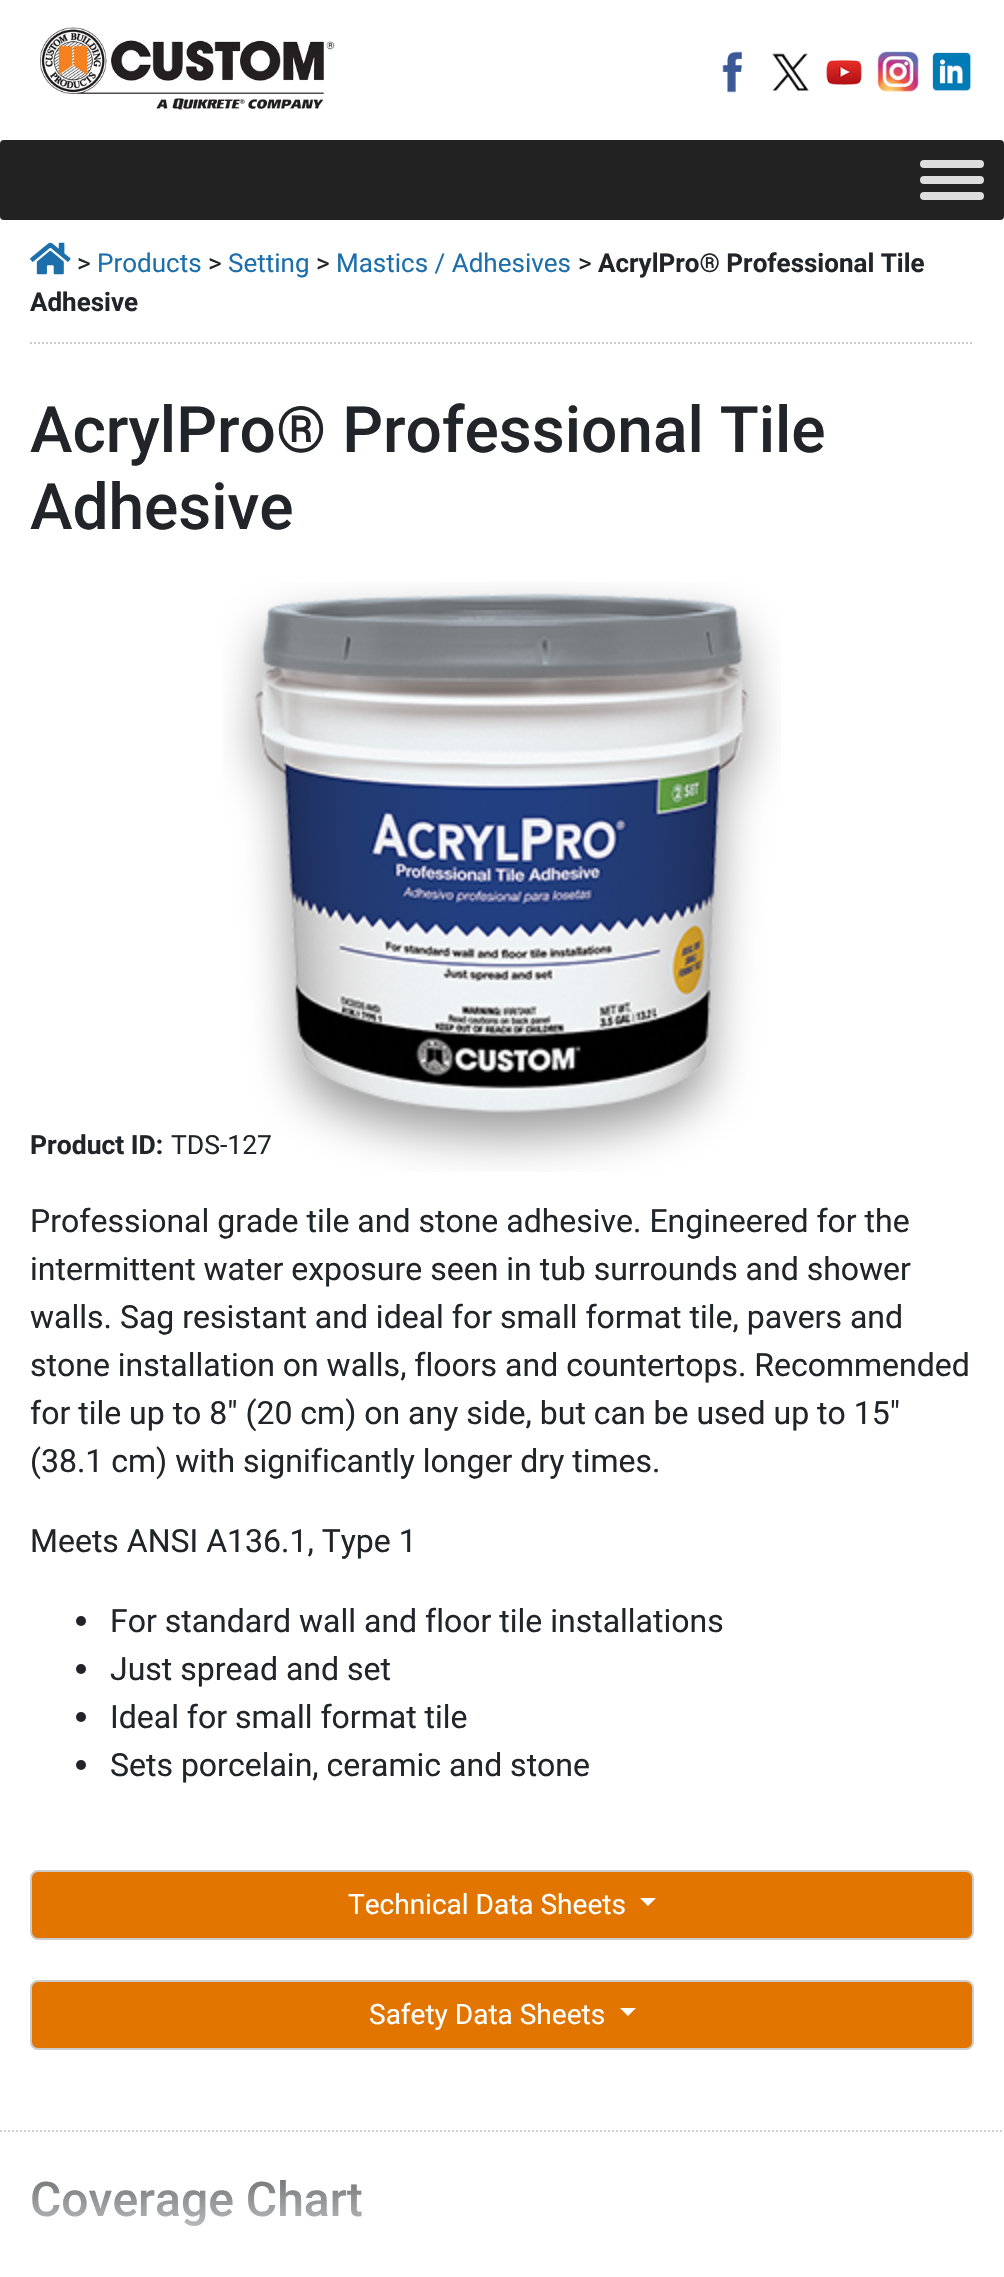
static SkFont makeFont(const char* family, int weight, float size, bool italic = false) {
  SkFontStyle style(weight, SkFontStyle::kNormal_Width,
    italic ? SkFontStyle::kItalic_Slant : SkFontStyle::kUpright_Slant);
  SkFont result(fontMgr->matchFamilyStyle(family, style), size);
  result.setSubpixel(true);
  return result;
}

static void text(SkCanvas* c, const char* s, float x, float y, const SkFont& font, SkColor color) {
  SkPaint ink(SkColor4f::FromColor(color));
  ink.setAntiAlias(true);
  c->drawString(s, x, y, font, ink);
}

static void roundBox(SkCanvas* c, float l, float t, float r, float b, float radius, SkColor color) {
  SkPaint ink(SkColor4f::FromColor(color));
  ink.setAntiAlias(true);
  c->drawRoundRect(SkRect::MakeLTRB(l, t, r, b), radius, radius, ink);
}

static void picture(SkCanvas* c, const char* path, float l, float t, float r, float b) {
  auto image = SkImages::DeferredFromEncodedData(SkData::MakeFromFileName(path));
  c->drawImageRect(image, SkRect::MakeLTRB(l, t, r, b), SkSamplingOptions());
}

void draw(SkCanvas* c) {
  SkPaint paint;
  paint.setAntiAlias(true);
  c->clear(0xffffffff);
  picture(c, "img_01.png", 40, 27, 335, 110);
  picture(c, "img_02.png", 722, 51, 742, 93);
  picture(c, "img_03.png", 772, 53, 809, 91);
  picture(c, "img_04.png", 826, 60, 862, 85);
  picture(c, "img_05.png", 877, 51, 919, 92);
  picture(c, "img_06.png", 932, 52, 971, 91);
  roundBox(c, 0, 140, 1004, 220, 4, 0xff222222);
  roundBox(c, 920, 160, 984, 168, 4, 0xffdddddd);
  roundBox(c, 920, 176, 984, 184, 4, 0xffdddddd);
  roundBox(c, 920, 192, 984, 200, 4, 0xffdddddd);
  paint.setStyle(SkPaint::kStroke_Style);
  paint.setStrokeWidth(2);
  paint.setColor(0xffcccccc);
  paint.setPathEffect(SkDashPathEffect::Make({{2, 2}}, 0));
  c->drawPath(SkPathBuilder().moveTo(30, 343).lineTo(974, 343).detach(), paint);
  paint.setPathEffect(nullptr);
  picture(c, "img_07.png", 30, 242, 71, 275);
  SkFont face1 = makeFont("Roboto", 400, 26);
  text(c, ">", 77, 272, face1, 0xff212529);
  text(c, "Products", 97, 272, face1, 0xff1d6fac);
  text(c, ">", 208, 272, face1, 0xff212529);
  text(c, "Setting", 228, 272, face1, 0xff1d6fac);
  text(c, ">", 316, 272, face1, 0xff212529);
  text(c, "Mastics / Adhesives", 336, 272, face1, 0xff1d6fac);
  text(c, ">", 578, 272, face1, 0xff212529);
  SkFont face2 = makeFont("Roboto", 700, 26);
  text(c, "AcrylPro® Professional Tile", 598, 272, face2, 0xff212529);
  text(c, "Adhesive", 30, 311, face2, 0xff212529);
  SkFont face3 = makeFont("Roboto", 500, 64);
  text(c, "AcrylPro® Professional Tile", 30, 452, face3, 0xff212529);
  text(c, "Adhesive", 30, 529, face3, 0xff212529);
  picture(c, "img_08.png", 223, 582, 781, 1172);
  SkFont face4 = makeFont("Roboto", 700, 26.5f);
  text(c, "Product ID:", 30, 1154, face4, 0xff212529);
  SkFont face5 = makeFont("Roboto", 400, 26.5f);
  text(c, "TDS-127", 171, 1154, face5, 0xff212529);
  SkFont face6 = makeFont("Roboto", 400, 32);
  text(c, "Professional grade tile and stone adhesive. Engineered for the", 30, 1232, face6, 0xff212529);
  text(c, "intermittent water exposure seen in tub surrounds and shower", 30, 1280, face6, 0xff212529);
  text(c, "walls. Sag resistant and ideal for small format tile, pavers and", 30, 1328, face6, 0xff212529);
  text(c, "stone installation on walls, floors and countertops. Recommended", 30, 1376, face6, 0xff212529);
  text(c, "for tile up to 8″ (20 cm) on any side, but can be used up to 15″", 30, 1424, face6, 0xff212529);
  text(c, "(38.1 cm) with significantly longer dry times.", 30, 1472, face6, 0xff212529);
  text(c, "Meets ANSI A136.1, Type 1", 30, 1552, face6, 0xff212529);
  paint.setStyle(SkPaint::kFill_Style);
  paint.setColor(0xff212529);
  c->drawCircle(81, 1621, 5, paint);
  text(c, "For standard wall and floor tile installations", 110, 1632, face6, 0xff212529);
  c->drawCircle(81, 1669, 5, paint);
  text(c, "Just spread and set", 110, 1680, face6, 0xff212529);
  c->drawCircle(81, 1717, 5, paint);
  text(c, "Ideal for small format tile", 110, 1728, face6, 0xff212529);
  c->drawCircle(81, 1765, 5, paint);
  text(c, "Sets porcelain, ceramic and stone", 110, 1776, face6, 0xff212529);
  paint.setColor(0xffe17500);
  c->drawRoundRect(SkRect::MakeLTRB(31, 1871, 973, 1939), 7, 7, paint);
  paint.setStyle(SkPaint::kStroke_Style);
  paint.setColor(0xffcccccc);
  c->drawRoundRect(SkRect::MakeLTRB(31, 1871, 973, 1939), 7, 7, paint);
  SkFont face7 = makeFont("Roboto", 400, 28);
  text(c, "Technical Data Sheets", 348, 1914, face7, 0xffffffff);
  paint.setStyle(SkPaint::kFill_Style);
  paint.setColor(0xffffffff);
  c->drawPath(SkPathBuilder().moveTo(640, 1898).lineTo(656, 1898).lineTo(648, 1906).close().detach(), paint);
  paint.setColor(0xffe17500);
  c->drawRoundRect(SkRect::MakeLTRB(31, 1981, 973, 2049), 7, 7, paint);
  paint.setStyle(SkPaint::kStroke_Style);
  paint.setColor(0xffcccccc);
  c->drawRoundRect(SkRect::MakeLTRB(31, 1981, 973, 2049), 7, 7, paint);
  text(c, "Safety Data Sheets", 369, 2024, face7, 0xffffffff);
  paint.setStyle(SkPaint::kFill_Style);
  paint.setColor(0xffffffff);
  c->drawPath(SkPathBuilder().moveTo(620, 2008).lineTo(636, 2008).lineTo(628, 2016).close().detach(), paint);
  paint.setStyle(SkPaint::kStroke_Style);
  paint.setColor(0xffcccccc);
  paint.setPathEffect(SkDashPathEffect::Make({{2, 2}}, 0));
  c->drawPath(SkPathBuilder().moveTo(0, 2131).lineTo(1004, 2131).detach(), paint);
  paint.setPathEffect(nullptr);
  SkFont face8 = makeFont("Roboto", 500, 48);
  text(c, "Coverage Chart", 30, 2216, face8, 0xff212529);
  paint.setStyle(SkPaint::kFill_Style);
  {
    const SkColor colors[] = {0x00ffffff, 0xffffffff};
    const float stops[] = {0, 1};
    const SkPoint ends[] = {{502, 2118}, {502, 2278}};
    paint.setShader(SkGradientShader::MakeLinear(ends, colors, stops, 2, SkTileMode::kClamp));
    paint.setAlpha(255);
  }
  c->drawRect(SkRect::MakeLTRB(0, 2130, 1002, 2226), paint);
}
